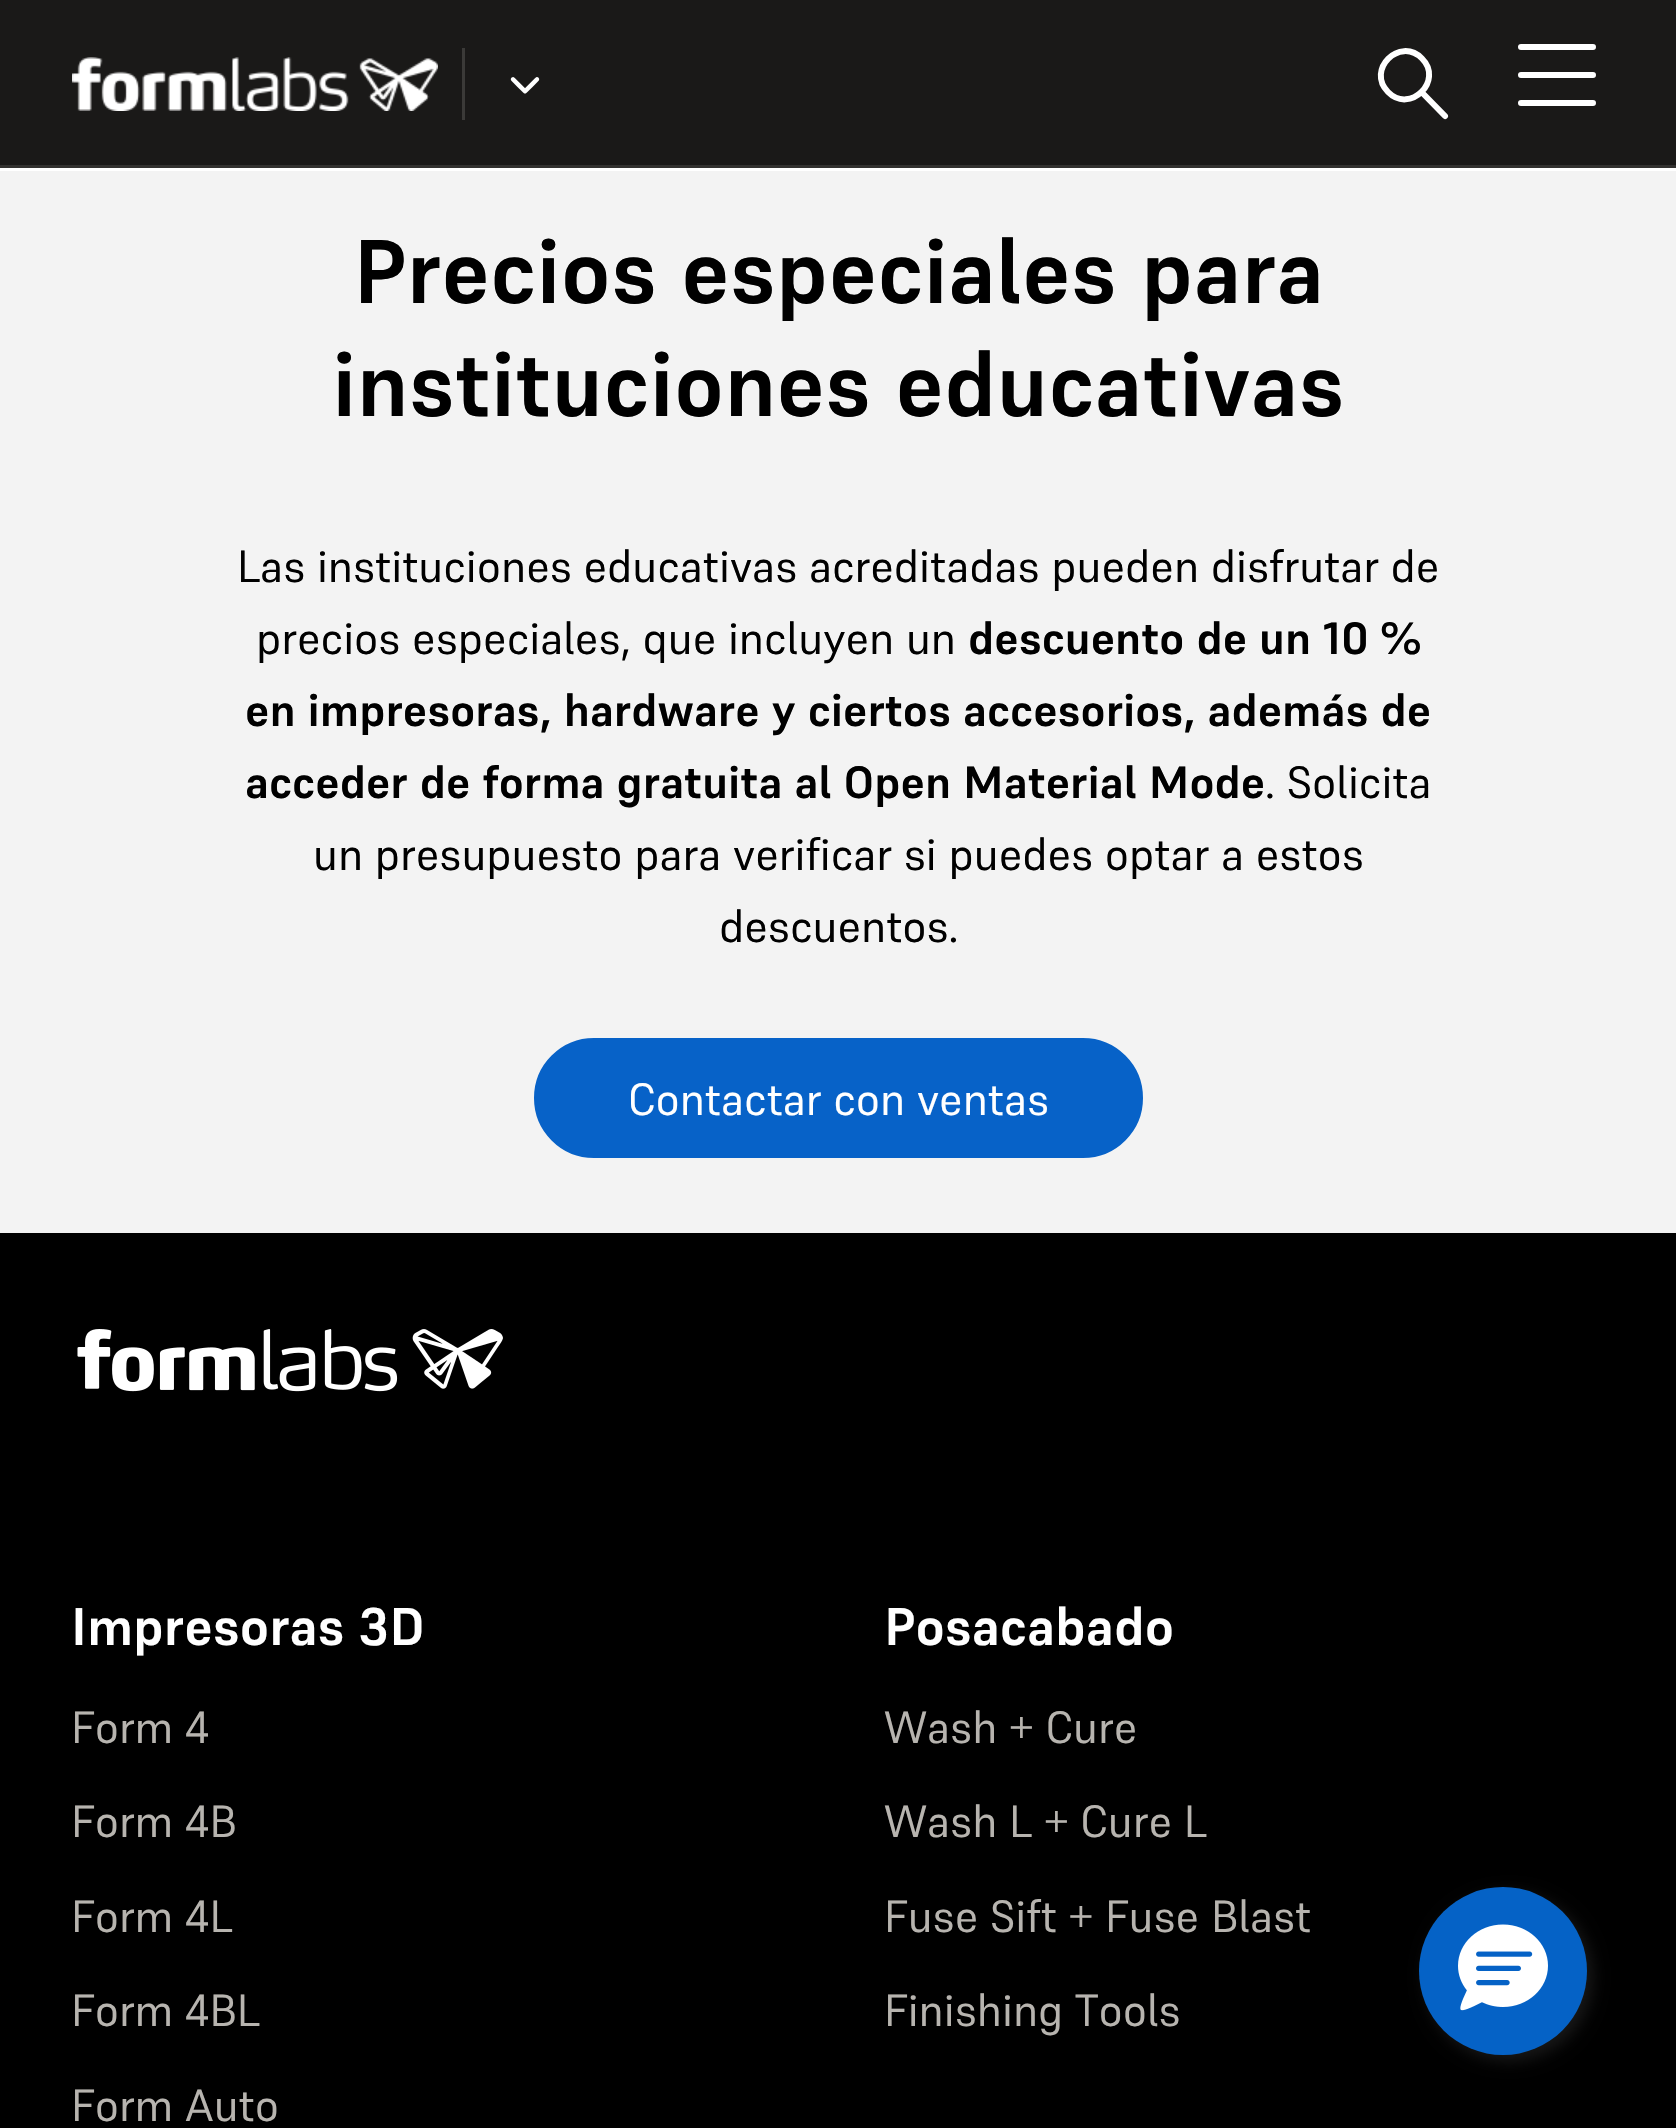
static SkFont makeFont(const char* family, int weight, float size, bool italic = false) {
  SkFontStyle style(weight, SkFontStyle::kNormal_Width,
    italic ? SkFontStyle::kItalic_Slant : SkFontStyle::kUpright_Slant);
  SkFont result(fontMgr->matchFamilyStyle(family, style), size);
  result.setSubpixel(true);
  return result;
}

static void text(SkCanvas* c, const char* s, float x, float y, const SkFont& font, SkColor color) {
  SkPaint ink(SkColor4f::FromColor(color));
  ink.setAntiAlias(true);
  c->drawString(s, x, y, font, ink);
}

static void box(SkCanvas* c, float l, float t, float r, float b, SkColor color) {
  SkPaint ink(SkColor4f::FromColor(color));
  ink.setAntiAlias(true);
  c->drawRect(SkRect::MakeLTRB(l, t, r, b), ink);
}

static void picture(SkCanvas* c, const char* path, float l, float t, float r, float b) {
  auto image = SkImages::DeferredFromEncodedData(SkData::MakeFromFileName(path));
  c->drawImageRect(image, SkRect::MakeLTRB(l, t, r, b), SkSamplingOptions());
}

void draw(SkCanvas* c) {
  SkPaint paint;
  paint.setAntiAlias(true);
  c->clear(0xffffffff);
  box(c, 0, 0, 1676, 165, 0xff1a1918);
  box(c, 0, 165, 1676, 168, 0xff32312f);
  picture(c, "img_01.png", 72, 57, 438, 111);
  box(c, 462, 48, 465, 120, 0xff3b3a38);
  picture(c, "img_02.png", 510, 77, 540, 94);
  paint.setStyle(SkPaint::kStroke_Style);
  paint.setStrokeWidth(6);
  paint.setStrokeCap(SkPaint::kRound_Cap);
  paint.setStrokeJoin(SkPaint::kRound_Join);
  paint.setColor(0xffffffff);
  c->drawPath(SkPathBuilder().moveTo(1422, 58.5f).cubicTo(1444, 80.5f, 1410, 114.5f, 1388, 92).cubicTo(1366, 70, 1399.5f, 36, 1422, 58.5f).moveTo(1421.5f, 92).lineTo(1445, 116).detach(), paint);
  c->drawPath(SkPathBuilder().moveTo(1521, 47).lineTo(1593, 47).moveTo(1521, 75).lineTo(1593, 75).moveTo(1521, 103).lineTo(1593, 103).detach(), paint);
  box(c, 0, 171, 1676, 1233, 0xfff3f3f3);
  SkFont face1 = makeFont("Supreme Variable", 700, 90);
  text(c, "Precios especiales para", 353, 303, face1, 0xff000000);
  text(c, "instituciones educativas", 332, 416, face1, 0xff000000);
  SkFont face2 = makeFont("Supreme Variable", 400, 45);
  text(c, "Las instituciones educativas acreditadas pueden disfrutar de", 237, 582, face2, 0xff000000);
  text(c, "precios especiales, que incluyen un", 256, 654, face2, 0xff000000);
  SkFont face3 = makeFont("Supreme Variable", 700, 45);
  text(c, "descuento de un 10 %", 968, 654, face3, 0xff000000);
  text(c, "en impresoras, hardware y ciertos accesorios, además de", 245, 726, face3, 0xff000000);
  text(c, "acceder de forma gratuita al Open Material Mode", 245, 798, face3, 0xff000000);
  text(c, ". Solicita", 1265, 798, face2, 0xff000000);
  text(c, "un presupuesto para verificar si puedes optar a estos", 313, 870, face2, 0xff000000);
  text(c, "descuentos.", 719, 942, face2, 0xff000000);
  paint.setStyle(SkPaint::kFill_Style);
  paint.setColor(0xff0762c8);
  c->drawRoundRect(SkRect::MakeLTRB(535.5f, 1039.5f, 1141.5f, 1156.5f), 58.5f, 58.5f, paint);
  paint.setStyle(SkPaint::kStroke_Style);
  paint.setStrokeWidth(3);
  paint.setStrokeCap(SkPaint::kButt_Cap);
  paint.setStrokeJoin(SkPaint::kMiter_Join);
  c->drawRoundRect(SkRect::MakeLTRB(535.5f, 1039.5f, 1141.5f, 1156.5f), 58.5f, 58.5f, paint);
  text(c, "Contactar con ventas", 628, 1115, face2, 0xffffffff);
  box(c, 0, 1233, 1676, 2128, 0xff000000);
  picture(c, "img_03.png", 77, 1329, 503, 1392);
  SkFont face4 = makeFont("Supreme Variable", 700, 52.75f);
  text(c, "Impresoras 3D", 71, 1645, face4, 0xffffffff);
  text(c, "Form 4", 71, 1743, face2, 0xffb7b4af);
  text(c, "Form 4B", 71, 1837, face2, 0xffb7b4af);
  text(c, "Form 4L", 71, 1932, face2, 0xffb7b4af);
  text(c, "Form 4BL", 71, 2026, face2, 0xffb7b4af);
  text(c, "Form Auto", 71, 2121, face2, 0xffb7b4af);
  text(c, "Posacabado", 884, 1645, face4, 0xffffffff);
  text(c, "Wash + Cure", 884, 1743, face2, 0xffb7b4af);
  text(c, "Wash L + Cure L", 884, 1837, face2, 0xffb7b4af);
  text(c, "Fuse Sift + Fuse Blast", 884, 1932, face2, 0xffb7b4af);
  text(c, "Finishing Tools", 884, 2026, face2, 0xffb7b4af);
  paint.setStyle(SkPaint::kFill_Style);
  paint.setColor(0x802d2d2d);
  paint.setMaskFilter(SkMaskFilter::MakeBlur(kNormal_SkBlurStyle, 7.5f));
  c->drawRoundRect(SkRect::MakeLTRB(1425, 1893, 1593, 2061), 84, 84, paint);
  paint.setMaskFilter(nullptr);
  paint.setColor(0xff0562c6);
  c->drawCircle(1503, 1971, 84, paint);
  picture(c, "img_04.png", 1458, 1924, 1548, 2011);
}
